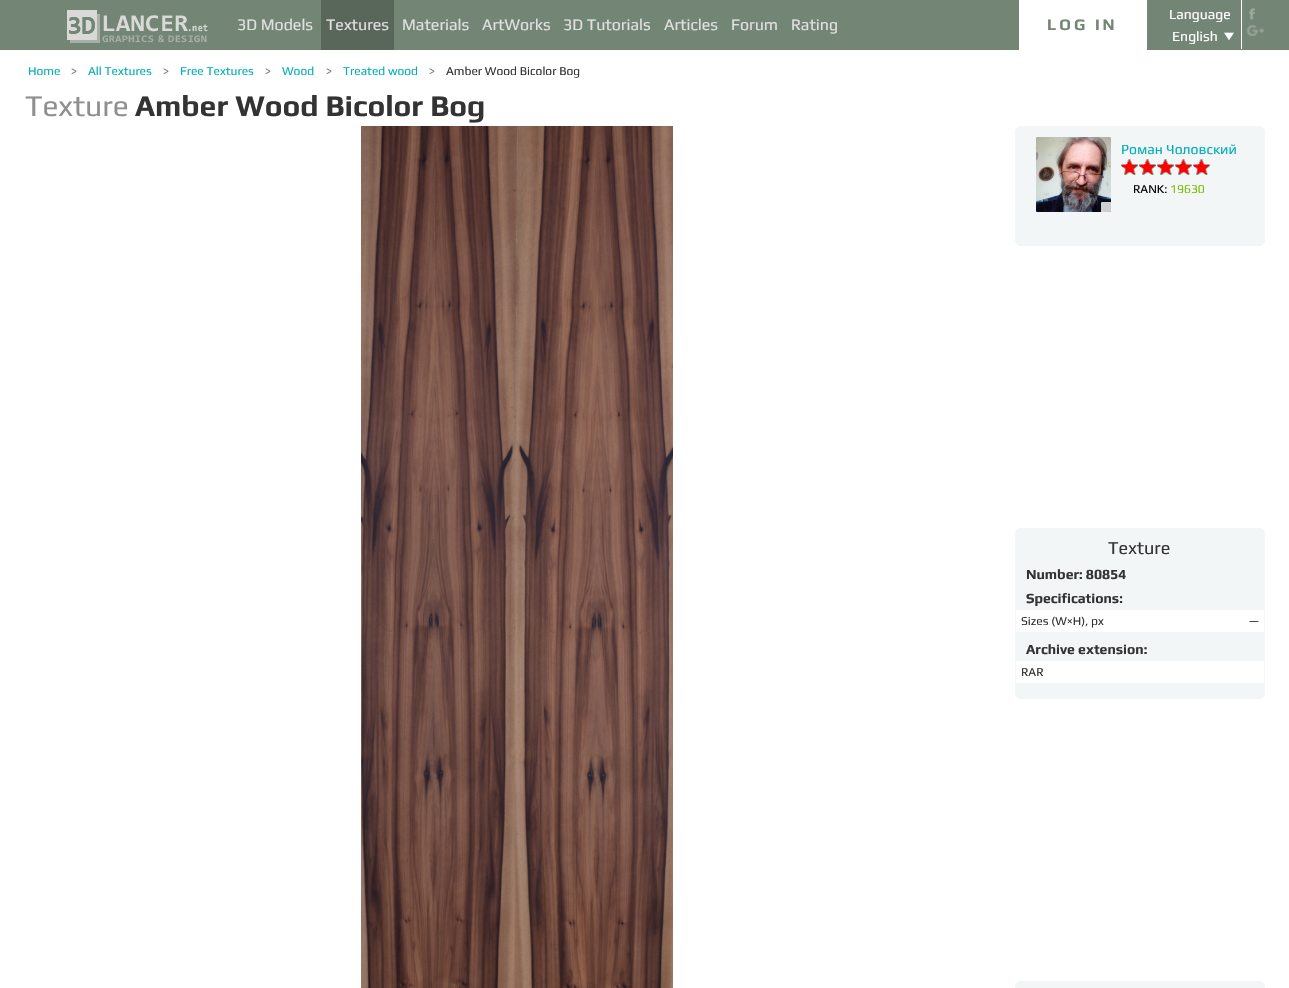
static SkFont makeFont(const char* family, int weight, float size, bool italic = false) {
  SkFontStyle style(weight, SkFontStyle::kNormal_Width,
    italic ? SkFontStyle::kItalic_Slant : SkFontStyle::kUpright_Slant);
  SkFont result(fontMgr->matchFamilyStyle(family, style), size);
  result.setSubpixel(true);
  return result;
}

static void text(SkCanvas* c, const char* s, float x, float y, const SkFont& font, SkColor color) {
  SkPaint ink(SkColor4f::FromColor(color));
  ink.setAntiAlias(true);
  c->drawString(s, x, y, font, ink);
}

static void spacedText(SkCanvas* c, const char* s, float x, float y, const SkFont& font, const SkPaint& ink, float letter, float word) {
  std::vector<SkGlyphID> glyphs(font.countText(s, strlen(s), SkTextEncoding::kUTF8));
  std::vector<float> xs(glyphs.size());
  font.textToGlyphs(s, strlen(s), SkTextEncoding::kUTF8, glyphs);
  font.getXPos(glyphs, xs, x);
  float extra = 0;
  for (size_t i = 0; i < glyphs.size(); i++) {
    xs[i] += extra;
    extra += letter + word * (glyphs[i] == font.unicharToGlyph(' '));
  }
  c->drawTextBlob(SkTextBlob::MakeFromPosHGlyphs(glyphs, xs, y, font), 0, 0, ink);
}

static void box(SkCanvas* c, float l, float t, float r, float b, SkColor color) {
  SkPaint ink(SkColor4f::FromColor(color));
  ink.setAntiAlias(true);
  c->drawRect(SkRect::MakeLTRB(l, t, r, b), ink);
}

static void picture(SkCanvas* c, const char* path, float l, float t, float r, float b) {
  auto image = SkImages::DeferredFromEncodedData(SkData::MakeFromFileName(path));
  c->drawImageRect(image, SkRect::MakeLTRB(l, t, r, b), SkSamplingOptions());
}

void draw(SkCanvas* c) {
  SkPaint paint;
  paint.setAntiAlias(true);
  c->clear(0xffffffff);
  box(c, 0, 0, 1289, 50, 0xff738575);
  picture(c, "img_01.png", 67, 10, 208, 43);
  SkFont face1 = makeFont("Play", 400, 16);
  text(c, "3D Models", 237, 30, face1, 0xffe0e0e0);
  box(c, 321, 0, 394, 50, 0xff59675b);
  text(c, "Textures", 326, 30, face1, 0xffe0e0e0);
  text(c, "Materials", 402, 30, face1, 0xffe0e0e0);
  text(c, "ArtWorks", 482, 30, face1, 0xffe0e0e0);
  text(c, "3D Tutorials", 563, 30, face1, 0xffe0e0e0);
  text(c, "Articles", 664, 30, face1, 0xffe0e0e0);
  text(c, "Forum", 731, 30, face1, 0xffe0e0e0);
  text(c, "Rating", 791, 30, face1, 0xffe0e0e0);
  box(c, 1019, 0, 1147, 50, 0xffffffff);
  SkFont face2 = makeFont("Play", 700, 16);
  paint.setColor(0xff738575);
  spacedText(c, "LOG IN", 1047, 30, face2, paint, 3, 0);
  SkFont face3 = makeFont("Play", 400, 14);
  text(c, "Language", 1169, 19, face3, 0xffffffff);
  picture(c, "img_02.png", 1224, 32, 1234, 41);
  text(c, "English", 1172, 41, face3, 0xffffffff);
  box(c, 1241, 0, 1242, 49, 0xffffffff);
  picture(c, "img_03.png", 1249, 8, 1255, 20);
  picture(c, "img_04.png", 1247, 25, 1264, 36);
  SkFont face4 = makeFont("Play", 400, 12);
  text(c, "Home", 28, 75, face4, 0xff00b0b9);
  text(c, ">", 71, 75, face4, 0xff738575);
  text(c, "All Textures", 88, 75, face4, 0xff00b0b9);
  text(c, ">", 163, 75, face4, 0xff738575);
  text(c, "Free Textures", 180, 75, face4, 0xff00b0b9);
  text(c, ">", 265, 75, face4, 0xff738575);
  text(c, "Wood", 282, 75, face4, 0xff00b0b9);
  text(c, ">", 326, 75, face4, 0xff738575);
  text(c, "Treated wood", 343, 75, face4, 0xff00b0b9);
  text(c, ">", 429, 75, face4, 0xff738575);
  text(c, "Amber Wood Bicolor Bog", 446, 75, face4, 0xff333333);
  SkFont face5 = makeFont("Play", 400, 30);
  text(c, "Texture", 25, 116, face5, 0xff8f8f8f);
  SkFont face6 = makeFont("Play", 700, 30);
  text(c, "Amber Wood Bicolor Bog", 135, 116, face6, 0xff333333);
  picture(c, "img_05.png", 361, 126, 673, 988);
  paint.setColor(0xfff2f6f7);
  c->drawRoundRect(SkRect::MakeLTRB(1015.5f, 126.5f, 1264.5f, 245.5f), 4.5f, 4.5f, paint);
  paint.setStyle(SkPaint::kStroke_Style);
  paint.setStrokeWidth(1);
  c->drawRoundRect(SkRect::MakeLTRB(1015.5f, 126.5f, 1264.5f, 245.5f), 4.5f, 4.5f, paint);
  picture(c, "img_06.png", 1036, 137, 1111, 212);
  paint.setStyle(SkPaint::kFill_Style);
  paint.setColor(0xffcfcfcf);
  c->drawPath(SkPathBuilder().moveTo(1102, 202).lineTo(1111, 202).lineTo(1111, 211).cubicTo(1111, 211.5f, 1110.5f, 212, 1110, 212).lineTo(1101, 212).lineTo(1101, 203).cubicTo(1101, 202.5f, 1101.5f, 202, 1102, 202).close().detach(), paint);
  text(c, "Роман Чоловский", 1121, 154, face3, 0xff00b0b9);
  picture(c, "img_07.png", 1121, 159, 1138, 175);
  picture(c, "img_07.png", 1139, 159, 1156, 175);
  picture(c, "img_08.png", 1157, 159, 1174, 175);
  picture(c, "img_08.png", 1175, 159, 1192, 175);
  picture(c, "img_08.png", 1193, 159, 1210, 175);
  text(c, "RANK:", 1133, 193, face4, 0xff000000);
  text(c, "19 630", 1170, 193, face4, 0xff7cbc00);
  paint.setColor(0xfff2f6f7);
  c->drawRoundRect(SkRect::MakeLTRB(1015.5f, 528.5f, 1264.5f, 698.5f), 4.5f, 4.5f, paint);
  paint.setStyle(SkPaint::kStroke_Style);
  c->drawRoundRect(SkRect::MakeLTRB(1015.5f, 528.5f, 1264.5f, 698.5f), 4.5f, 4.5f, paint);
  SkFont face7 = makeFont("Play", 400, 18);
  text(c, "Texture", 1108, 554, face7, 0xff333333);
  SkFont face8 = makeFont("Play", 700, 14);
  text(c, "Number: 80854", 1026, 579, face8, 0xff333333);
  text(c, "Specifications:", 1026, 603, face8, 0xff333333);
  box(c, 1016, 610, 1264, 632, 0xffffffff);
  text(c, "Sizes (W×H), px", 1021, 625, face4, 0xff333333);
  text(c, "—", 1249, 625, face4, 0xff333333);
  text(c, "Archive extension:", 1026, 654, face8, 0xff333333);
  box(c, 1016, 661, 1264, 683, 0xffffffff);
  text(c, "RAR", 1021, 676, face4, 0xff333333);
  paint.setStyle(SkPaint::kFill_Style);
  c->drawRoundRect(SkRect::MakeLTRB(1015.5f, 981.5f, 1264.5f, 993.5f), 4.5f, 4.5f, paint);
  paint.setStyle(SkPaint::kStroke_Style);
  c->drawRoundRect(SkRect::MakeLTRB(1015.5f, 981.5f, 1264.5f, 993.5f), 4.5f, 4.5f, paint);
}
